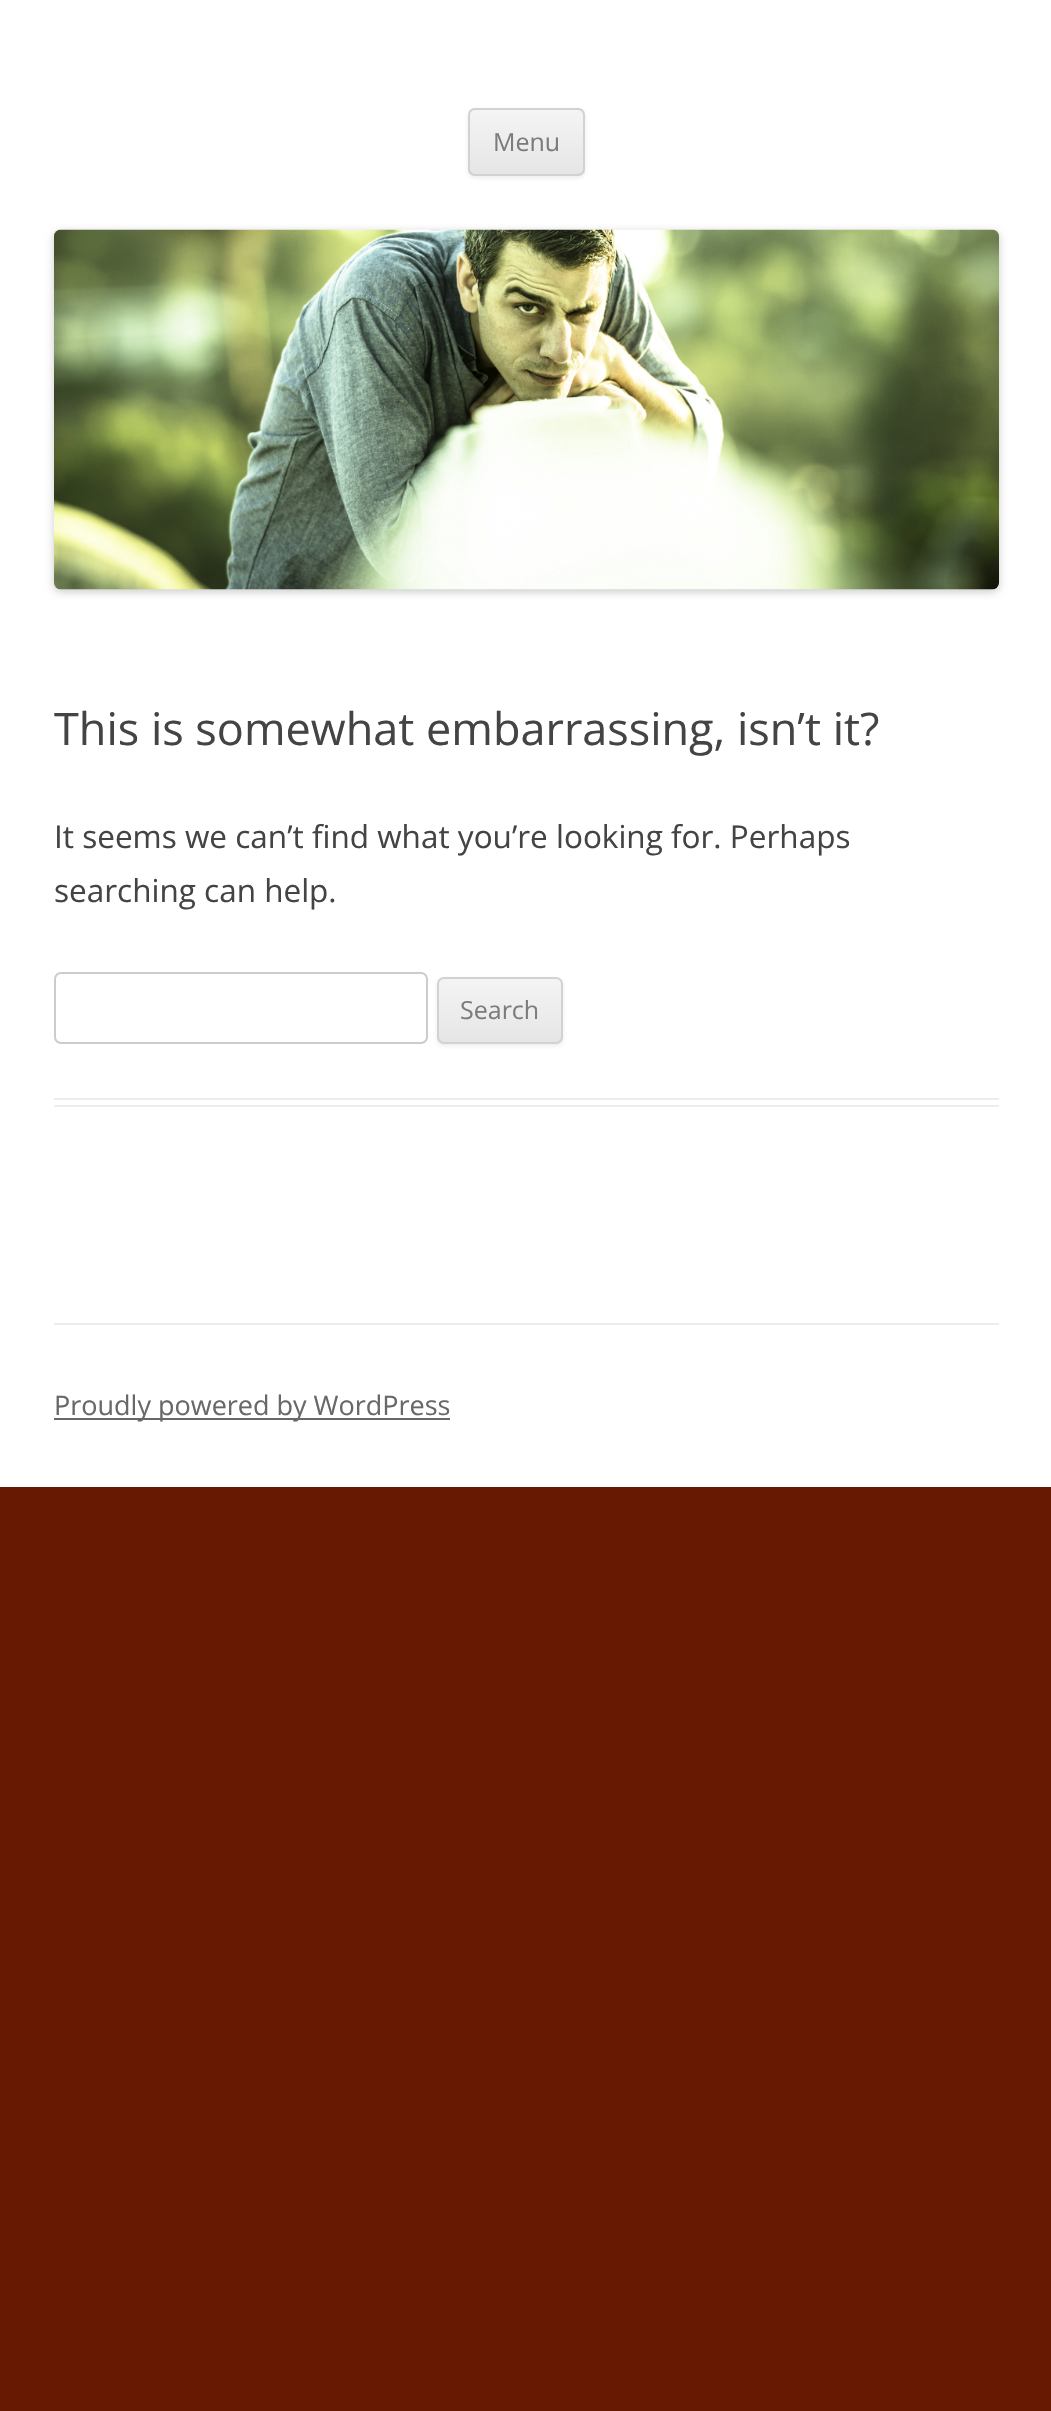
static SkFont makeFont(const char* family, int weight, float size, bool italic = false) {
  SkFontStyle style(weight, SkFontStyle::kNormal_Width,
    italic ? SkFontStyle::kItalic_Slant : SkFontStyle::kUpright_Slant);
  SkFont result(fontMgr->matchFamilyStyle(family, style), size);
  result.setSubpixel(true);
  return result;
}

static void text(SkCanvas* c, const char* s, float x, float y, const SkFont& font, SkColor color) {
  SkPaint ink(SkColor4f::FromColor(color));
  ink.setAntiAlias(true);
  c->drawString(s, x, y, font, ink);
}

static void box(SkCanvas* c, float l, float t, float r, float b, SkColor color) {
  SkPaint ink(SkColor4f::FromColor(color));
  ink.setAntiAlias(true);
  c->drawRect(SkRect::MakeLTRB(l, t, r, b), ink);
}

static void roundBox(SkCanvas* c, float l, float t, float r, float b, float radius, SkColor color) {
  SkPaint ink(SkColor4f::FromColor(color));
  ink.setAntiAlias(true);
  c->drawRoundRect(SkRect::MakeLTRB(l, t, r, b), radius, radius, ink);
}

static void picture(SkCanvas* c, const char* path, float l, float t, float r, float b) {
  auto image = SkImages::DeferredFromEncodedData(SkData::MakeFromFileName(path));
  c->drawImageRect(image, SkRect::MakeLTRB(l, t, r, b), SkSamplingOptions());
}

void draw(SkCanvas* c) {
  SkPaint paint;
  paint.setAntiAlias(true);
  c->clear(0xff681902);
  box(c, 0, 0, 1051, 1487, 0xffffffff);
  paint.setColor(0x1a404040);
  paint.setMaskFilter(SkMaskFilter::MakeBlur(kNormal_SkBlurStyle, 2));
  c->drawRoundRect(SkRect::MakeLTRB(468, 110, 585, 178), 7, 7, paint);
  paint.setMaskFilter(nullptr);
  roundBox(c, 468, 108, 585, 176, 7, 0xffe6e6e6);
  c->save();
  c->clipPath(SkPathBuilder().moveTo(475, 108).lineTo(578, 108).cubicTo(582, 108, 585, 111, 585, 115).lineTo(585, 169).cubicTo(585, 173, 582, 176, 578, 176).lineTo(475, 176).cubicTo(471, 176, 468, 173, 468, 169).lineTo(468, 115).cubicTo(468, 111, 471, 108, 475, 108).close().detach(), true);
  {
    const SkColor colors[] = {0xfff4f4f4, 0xffe6e6e6};
    const float stops[] = {0, 1};
    const SkPoint ends[] = {{527, 110}, {527, 173}};
    paint.setShader(SkGradientShader::MakeLinear(ends, colors, stops, 2, SkTileMode::kClamp));
    paint.setAlpha(255);
  }
  c->drawRect(SkRect::MakeLTRB(468, 110, 585, 173), paint);
  c->restore();
  paint.setStyle(SkPaint::kStroke_Style);
  paint.setStrokeWidth(2);
  paint.setShader(nullptr);
  paint.setColor(0xffd2d2d2);
  c->drawRoundRect(SkRect::MakeLTRB(469, 109, 584, 175), 6, 6, paint);
  SkFont face1 = makeFont("Open Sans", 400, 25);
  text(c, "Menu", 493, 151, face1, 0xff7c7c7c);
  paint.setStyle(SkPaint::kFill_Style);
  paint.setColor(0x33000000);
  paint.setMaskFilter(SkMaskFilter::MakeBlur(kNormal_SkBlurStyle, 4.5f));
  c->drawRoundRect(SkRect::MakeLTRB(54, 232, 999, 592), 7, 7, paint);
  paint.setMaskFilter(nullptr);
  picture(c, "img_01.png", 54, 229, 999, 590);
  box(c, 54, 1098, 999, 1100, 0xffededed);
  box(c, 54, 1105, 999, 1107, 0xffededed);
  SkFont face2 = makeFont("Open Sans", 400, 45);
  text(c, "This is somewhat embarrassing, isn’t it?", 54, 745, face2, 0xff444444);
  SkFont face3 = makeFont("Open Sans", 400, 31.5f);
  text(c, "It seems we can’t find what you’re looking for. Perhaps", 54, 848, face3, 0xff444444);
  text(c, "searching can help.", 54, 902, face3, 0xff444444);
  paint.setStyle(SkPaint::kStroke_Style);
  paint.setColor(0xffcccccc);
  c->drawRoundRect(SkRect::MakeLTRB(55, 973, 427, 1043), 6, 6, paint);
  paint.setStyle(SkPaint::kFill_Style);
  paint.setColor(0x1a404040);
  paint.setMaskFilter(SkMaskFilter::MakeBlur(kNormal_SkBlurStyle, 2));
  c->drawRoundRect(SkRect::MakeLTRB(437, 979, 563, 1046), 7, 7, paint);
  paint.setMaskFilter(nullptr);
  c->save();
  c->clipPath(SkPathBuilder().moveTo(444, 977).lineTo(556, 977).cubicTo(560, 977, 563, 980, 563, 984).lineTo(563, 1037).cubicTo(563, 1041, 560, 1044, 556, 1044).lineTo(444, 1044).cubicTo(440, 1044, 437, 1041, 437, 1037).lineTo(437, 984).cubicTo(437, 980, 440, 977, 444, 977).close().detach(), true);
  {
    const SkColor colors[] = {0xfff4f4f4, 0xffe6e6e6};
    const float stops[] = {0, 1};
    const SkPoint ends[] = {{500, 979}, {500, 1042}};
    paint.setShader(SkGradientShader::MakeLinear(ends, colors, stops, 2, SkTileMode::kClamp));
    paint.setAlpha(255);
  }
  c->drawRect(SkRect::MakeLTRB(437, 979, 563, 1042), paint);
  c->restore();
  paint.setStyle(SkPaint::kStroke_Style);
  paint.setShader(nullptr);
  paint.setColor(0xffd2d2d2);
  c->drawRoundRect(SkRect::MakeLTRB(438, 978, 562, 1043), 6, 6, paint);
  text(c, "Search", 460, 1019, face1, 0xff7c7c7c);
  box(c, 54, 1323, 999, 1325, 0xffededed);
  box(c, 54, 1418, 450, 1420, 0xff686868);
  SkFont face4 = makeFont("Open Sans", 400, 27);
  text(c, "Proudly powered by WordPress", 54, 1415, face4, 0xff686868);
}
